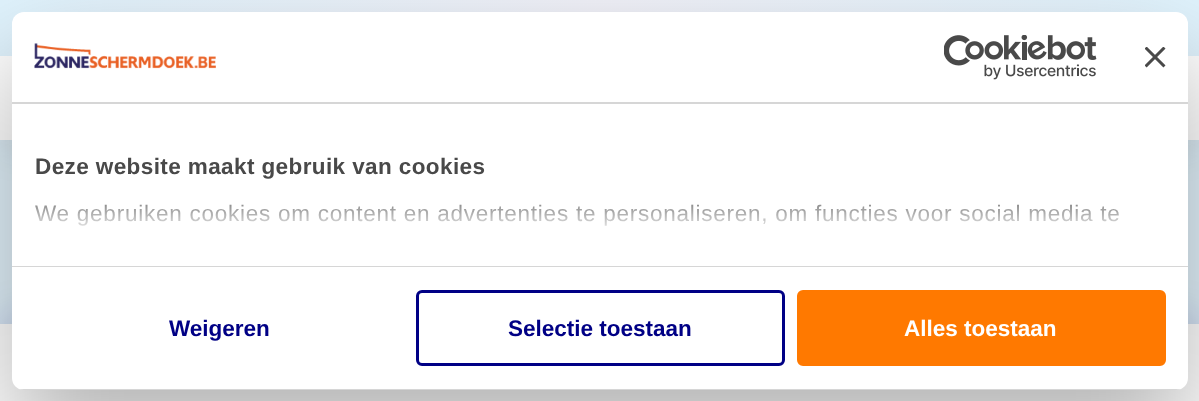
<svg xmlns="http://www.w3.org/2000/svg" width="1199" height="401">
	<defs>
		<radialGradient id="g1" gradientUnits="userSpaceOnUse" cx="600" cy="28" r="601"><stop offset="0" stop-color="#F2F2F9" /><stop offset="1" stop-color="#E0F3FD" /></radialGradient>
		<linearGradient id="g2" gradientUnits="userSpaceOnUse" x1="590" y1="266" x2="590" y2="185"><stop offset="0" stop-color="#FFFFFF" /><stop offset="0.5" stop-color="#FFFFFF" stop-opacity="0.8" /><stop offset="1" stop-color="#FFFFFF" stop-opacity="0" /></linearGradient>
		<clipPath id="clip1"><rect x="12" y="12" width="1176" height="378" rx="12" /></clipPath>
	</defs>
	<rect width="100%" height="100%" fill="#E3F3FC" />
	<rect x="0" y="15" width="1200" height="140" fill="#1F1F1F" fill-opacity="0.08" filter="blur(15px)" />
	<rect x="0" y="0" width="1199" height="56" fill="url(#g1)" />
	<rect x="0" y="56" width="1199" height="84" fill="#FFFFFF" />
	<rect x="0" y="317" width="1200" height="78" fill="#000085" fill-opacity="0.15" filter="blur(19px)" />
	<rect x="0" y="324" width="1199" height="77" fill="#FFFFFF" />
	<rect x="12" y="60" width="1176" height="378" rx="12" fill="#000000" fill-opacity="0.3" filter="blur(51px)" />
	<rect x="12" y="12" width="1176" height="378" rx="12" fill="#FFFFFF" />
	<rect x="12" y="102" width="1176" height="2" fill="#D6D6D6" />
	<image x="34" y="43" width="182" height="26" href="assets/img1.png" />
	<image x="944" y="35" width="153" height="45" href="assets/img2.png" />
	<image x="1145" y="47" width="21" height="21" href="assets/img3.png" />
	<rect x="12" y="266" width="1176" height="1" fill="#D6D6D6" />
	<text x="35" y="174" font-family="Liberation Sans" font-size="22.5" font-weight="700" letter-spacing="0.4" fill="#494949">Deze website maakt gebruik van cookies</text>
	<text x="35" y="221" font-family="Liberation Sans" font-size="22.5" letter-spacing="0.75" fill="#494949">We gebruiken cookies om content en advertenties te personaliseren, om functies voor social media te</text>
	<rect x="34" y="204" width="1085" height="22" fill="url(#g2)" />
	<g clip-path="url(#clip1)">
		<rect x="12" y="389" width="1176" height="1" fill="#D6D6D6" />
	</g>
	<text x="169" y="336" font-family="Liberation Sans" font-size="22.5" font-weight="700" fill="#000085">Weigeren</text>
	<rect x="417.5" y="291.5" width="366" height="73" rx="4.5" fill="none" stroke="#000085" stroke-width="3" />
	<text x="508" y="336" font-family="Liberation Sans" font-size="22.5" font-weight="700" fill="#000085">Selectie toestaan</text>
	<rect x="798.5" y="291.5" width="366" height="73" rx="4.5" fill="#FF7900" stroke="#FF7900" stroke-width="3" />
	<text x="904" y="336" font-family="Liberation Sans" font-size="22.5" font-weight="700" fill="#FFFFFF">Alles toestaan</text>
</svg>
